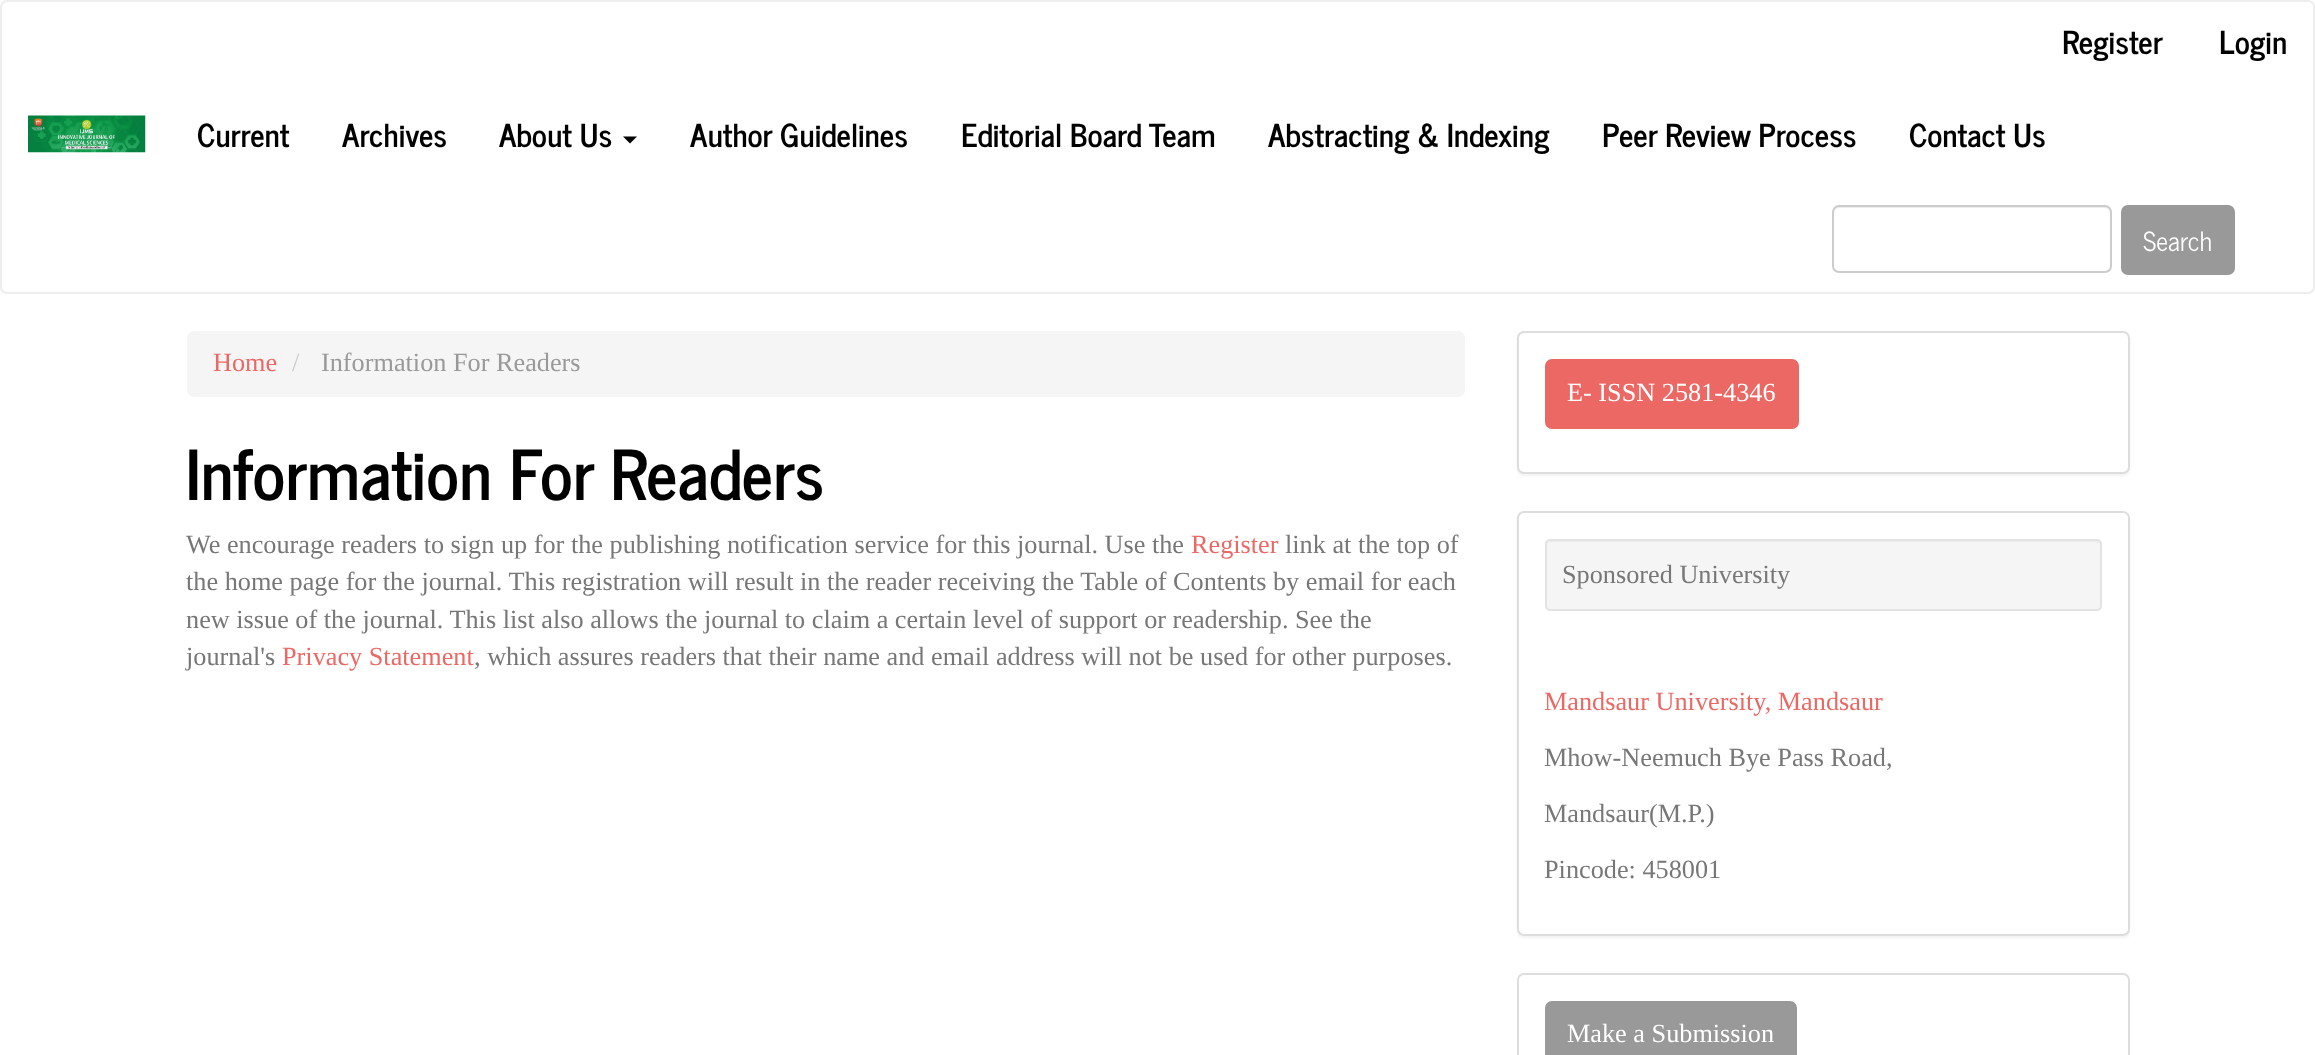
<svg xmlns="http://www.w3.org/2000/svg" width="2315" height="1055">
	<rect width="100%" height="100%" fill="#FFFFFF" />
	<rect x="1" y="1" width="2313" height="292" rx="6" fill="none" stroke="#EEEEEE" stroke-width="2" />
	<g font-family="News Cycle" font-size="31.5" font-weight="700" fill="#000000">
		<text x="2062" y="54">Register</text>
		<text x="2219" y="54">Login</text>
	</g>
	<image x="28" y="115" width="118" height="38" href="assets/img1.png" />
	<g font-family="News Cycle" font-size="31.5" font-weight="700" fill="#000000">
		<text x="197" y="147">Current</text>
		<text x="342" y="147">Archives</text>
		<text x="499" y="147">About Us</text>
	</g>
	<path d="M623 136.5H637L630 143.5Z" fill="#000000" />
	<g font-family="News Cycle" font-size="31.5" font-weight="700" fill="#000000">
		<text x="690" y="147">Author Guidelines</text>
		<text x="961" y="147">Editorial Board Team</text>
		<text x="1268" y="147">Abstracting &amp; Indexing</text>
		<text x="1602" y="147">Peer Review Process</text>
		<text x="1909" y="147">Contact Us</text>
	</g>
	<path d="M1839 208H2105C2108 208 2110 211 2110 214V269C2111 268 2111 267 2111 266V212C2111 209 2109 207 2106 207H1839C1836 207 1834 209 1834 212V214C1834 211 1836 208 1839 208Z" fill="#ECECEC" />
	<rect x="1833" y="206" width="278" height="66" rx="6" fill="none" stroke="#CCCCCC" stroke-width="2" />
	<rect x="2122" y="206" width="112" height="68" rx="6" fill="#999999" stroke="#999999" stroke-width="2" />
	<text x="2143" y="251" font-family="News Cycle" font-size="26.25" fill="#FFFFFF">Search</text>
	<rect x="187" y="331" width="1278" height="66" rx="7" fill="#F5F5F5" />
	<text x="213" y="371" font-family="Liberation Serif" font-size="26.25" fill="#EB6864">Home</text>
	<text x="292" y="371" font-family="Liberation Serif" font-size="26.25" fill="#CCCCCC">/</text>
	<text x="321" y="371" font-family="Liberation Serif" font-size="26.25" fill="#999999">Information For Readers</text>
	<text x="186" y="500" font-family="News Cycle" font-size="68.25" font-weight="700" fill="#000000">Information For Readers</text>
	<text x="186" y="553" font-family="Liberation Serif" font-size="26.25" fill="#777777">We encourage readers to sign up for the publishing notification service for this journal. Use the</text>
	<text x="1191" y="553" font-family="Liberation Serif" font-size="26.25" fill="#EB6864">Register</text>
	<g font-family="Liberation Serif" font-size="26.25" fill="#777777">
		<text x="1285" y="553">link at the top of</text>
		<text x="186" y="590">the home page for the journal. This registration will result in the reader receiving the Table of Contents by email for each</text>
		<text x="186" y="628">new issue of the journal. This list also allows the journal to claim a certain level of support or readership. See the</text>
		<text x="186" y="665">journal's</text>
	</g>
	<text x="282" y="665" font-family="Liberation Serif" font-size="26.25" fill="#EB6864">Privacy Statement</text>
	<text x="474" y="665" font-family="Liberation Serif" font-size="26.25" fill="#777777">, which assures readers that their name and email address will not be used for other purposes.</text>
	<rect x="1517" y="333" width="613" height="143" rx="7" fill="#000000" fill-opacity="0.05" filter="blur(1px)" />
	<rect x="1518" y="332" width="611" height="141" rx="6" fill="#FFFFFF" stroke="#DDDDDD" stroke-width="2" />
	<rect x="1546" y="360" width="252" height="68" rx="6" fill="#EB6864" stroke="#EB6864" stroke-width="2" />
	<text x="1567" y="401" font-family="Liberation Serif" font-size="26.25" fill="#FFFFFF">E- ISSN 2581-4346</text>
	<rect x="1517" y="513" width="613" height="425" rx="7" fill="#000000" fill-opacity="0.05" filter="blur(1px)" />
	<rect x="1518" y="512" width="611" height="423" rx="6" fill="#FFFFFF" stroke="#DDDDDD" stroke-width="2" />
	<rect x="1545" y="539" width="557" height="72" rx="5" fill="#F5F5F5" />
	<path d="M1550 542H2096C2098 542 2100 544 2100 546V545C2100 543 2098 541 2096 541H1551C1549 541 1547 543 1547 545V546C1547 544 1549 542 1550 542Z" fill="#E9E9E9" />
	<rect x="1546" y="540" width="555" height="70" rx="4" fill="none" stroke="#E3E3E3" stroke-width="2" />
	<text x="1562" y="583" font-family="Liberation Serif" font-size="26.25" fill="#777777">Sponsored University</text>
	<text x="1544" y="710" font-family="Liberation Serif" font-size="26.25" fill="#EB6864">Mandsaur University, Mandsaur</text>
	<g font-family="Liberation Serif" font-size="26.25" fill="#777777">
		<text x="1544" y="766">Mhow-Neemuch Bye Pass Road,</text>
		<text x="1544" y="822">Mandsaur(M.P.)</text>
		<text x="1544" y="878">Pincode: 458001</text>
	</g>
	<rect x="1518" y="974" width="611" height="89" rx="6" fill="none" stroke="#DDDDDD" stroke-width="2" />
	<rect x="1546" y="1002" width="250" height="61" rx="6" fill="#999999" stroke="#999999" stroke-width="2" />
	<text x="1567" y="1042" font-family="Liberation Serif" font-size="26.25" fill="#FFFFFF">Make a Submission</text>
</svg>
